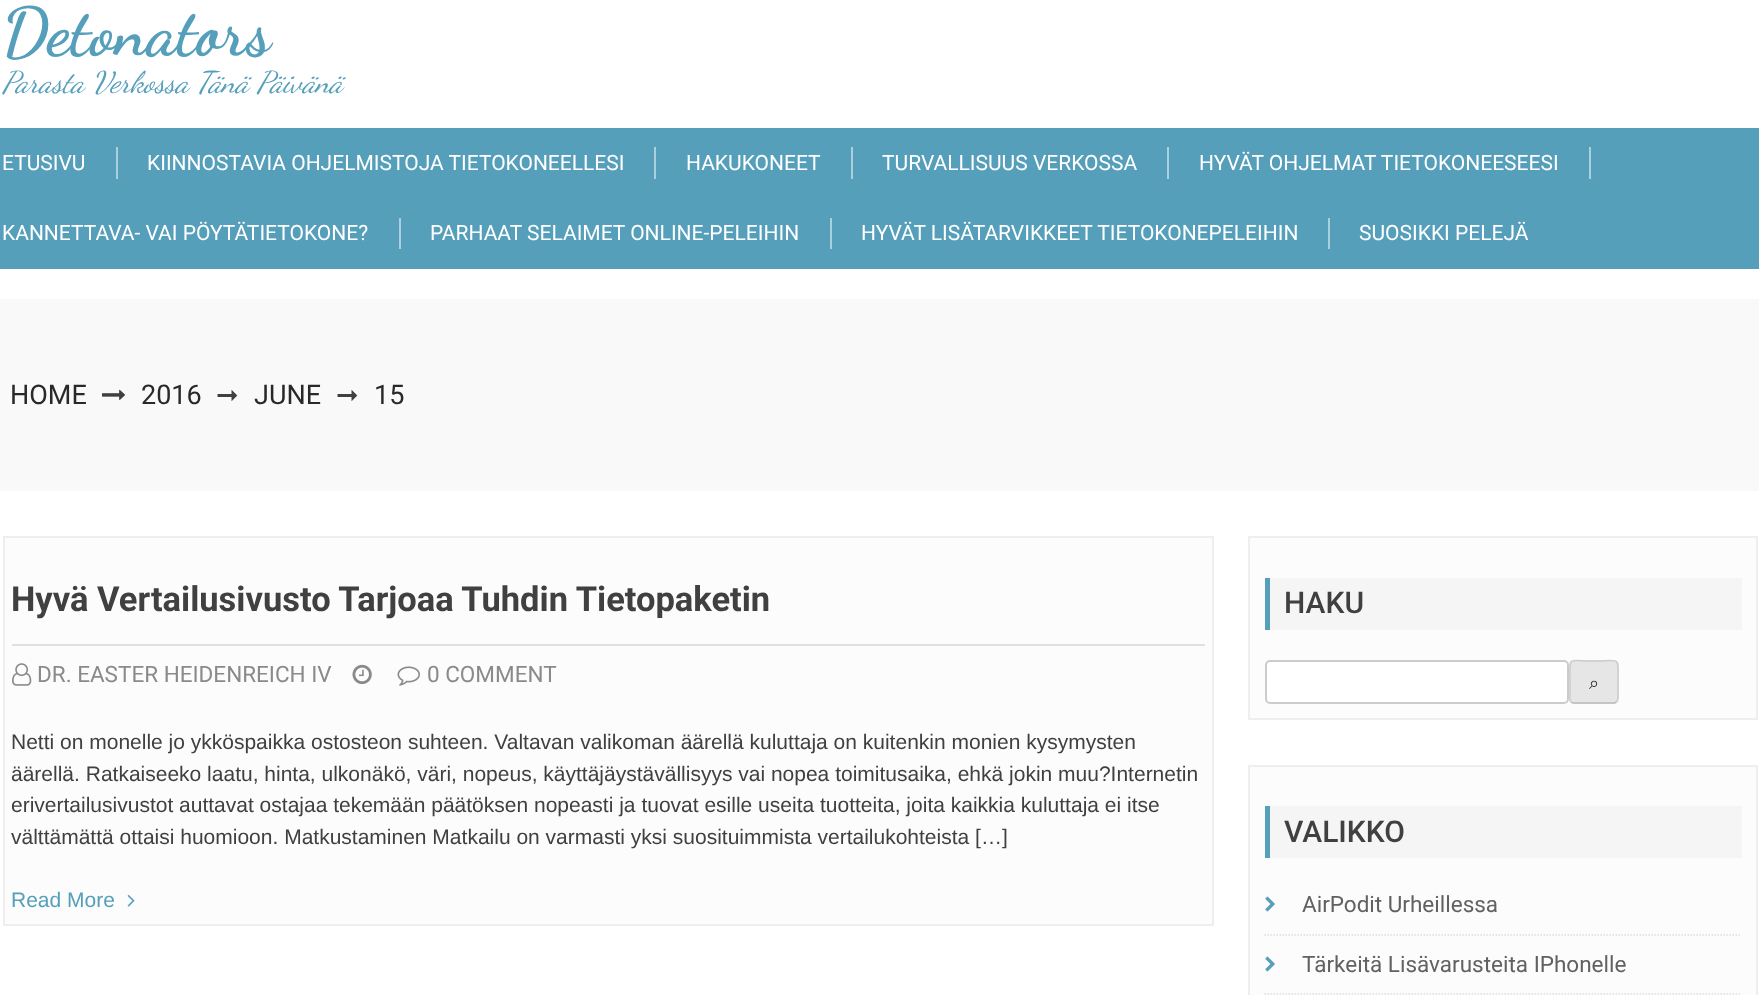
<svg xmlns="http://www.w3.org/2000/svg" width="1759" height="995">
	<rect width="100%" height="100%" fill="#FFFFFF" />
	<text x="2" y="54" font-family="Dancing Script" font-size="67.5" font-weight="700" fill="#559FBB">Detonators</text>
	<text x="2" y="92" font-family="Dancing Script" font-size="30" font-style="italic" fill="#559FBB">Parasta Verkossa Tänä Päivänä</text>
	<rect x="0" y="128" width="1759" height="141" fill="#559FBB" />
	<rect x="116" y="147" width="2" height="32" fill="#AACFDD" />
	<text x="2" y="170" font-family="Roboto" font-size="21" fill="#FFFFFF">ETUSIVU</text>
	<rect x="654" y="147" width="2" height="32" fill="#AACFDD" />
	<text x="147" y="170" font-family="Roboto" font-size="21" fill="#FFFFFF">KIINNOSTAVIA OHJELMISTOJA TIETOKONEELLESI</text>
	<rect x="851" y="147" width="2" height="32" fill="#AACFDD" />
	<text x="686" y="170" font-family="Roboto" font-size="21" fill="#FFFFFF">HAKUKONEET</text>
	<rect x="1167" y="147" width="2" height="32" fill="#AACFDD" />
	<text x="882" y="170" font-family="Roboto" font-size="21" fill="#FFFFFF">TURVALLISUUS VERKOSSA</text>
	<rect x="1589" y="147" width="2" height="32" fill="#AACFDD" />
	<text x="1199" y="170" font-family="Roboto" font-size="21" fill="#FFFFFF">HYVÄT OHJELMAT TIETOKONEESEESI</text>
	<rect x="399" y="218" width="2" height="31" fill="#AACFDD" />
	<text x="2" y="240" font-family="Roboto" font-size="21" fill="#FFFFFF">KANNETTAVA- VAI PÖYTÄTIETOKONE?</text>
	<rect x="830" y="218" width="2" height="31" fill="#AACFDD" />
	<text x="430" y="240" font-family="Roboto" font-size="21" fill="#FFFFFF">PARHAAT SELAIMET ONLINE-PELEIHIN</text>
	<rect x="1328" y="218" width="2" height="31" fill="#AACFDD" />
	<g font-family="Roboto" font-size="21" fill="#FFFFFF">
		<text x="861" y="240">HYVÄT LISÄTARVIKKEET TIETOKONEPELEIHIN</text>
		<text x="1359" y="240">SUOSIKKI PELEJÄ</text>
	</g>
	<rect x="0" y="299" width="1759" height="192" fill="#F9F9F9" />
	<text x="10" y="404" font-family="Roboto" font-size="27" fill="#292929">HOME</text>
	<image x="102" y="389" width="24" height="11" href="assets/img1.png" />
	<text x="141" y="404" font-family="Roboto" font-size="27" fill="#292929">2016</text>
	<text x="216" y="404" font-family="DejaVu Sans" font-size="27" fill="#404040">➞</text>
	<text x="254" y="404" font-family="Roboto" font-size="27" fill="#292929">JUNE</text>
	<text x="336" y="404" font-family="DejaVu Sans" font-size="27" fill="#404040">➞</text>
	<text x="374" y="404" font-family="Roboto" font-size="27" fill="#292929">15</text>
	<rect x="4" y="537" width="1209" height="388" fill="#FCFCFC" stroke="#EEEEEE" stroke-width="2" />
	<text x="11" y="611" font-family="Roboto" font-size="34.5" font-weight="700" fill="#404040">Hyvä Vertailusivusto Tarjoaa Tuhdin Tietopaketin</text>
	<rect x="12" y="644" width="1193" height="2" fill="#E0E0E0" />
	<image x="12" y="663" width="20" height="23" href="assets/img2.png" />
	<text x="37" y="682" font-family="Roboto" font-size="22.5" fill="#8A8A8A">DR. EASTER HEIDENREICH IV</text>
	<image x="352" y="664" width="20" height="21" href="assets/img3.png" />
	<image x="397" y="666" width="23" height="20" href="assets/img4.png" />
	<text x="427" y="682" font-family="Roboto" font-size="22.5" fill="#8A8A8A">0 COMMENT</text>
	<g font-family="Liberation Sans" font-size="21" fill="#404040">
		<text x="11" y="749">Netti on monelle jo ykköspaikka ostosteon suhteen. Valtavan valikoman äärellä kuluttaja on kuitenkin monien kysymysten</text>
		<text x="11" y="781">äärellä. Ratkaiseeko laatu, hinta, ulkonäkö, väri, nopeus, käyttäjäystävällisyys vai nopea toimitusaika, ehkä jokin muu?Internetin</text>
		<text x="11" y="812">erivertailusivustot auttavat ostajaa tekemään päätöksen nopeasti ja tuovat esille useita tuotteita, joita kaikkia kuluttaja ei itse</text>
		<text x="11" y="844">välttämättä ottaisi huomioon. Matkustaminen Matkailu on varmasti yksi suosituimmista vertailukohteista […]</text>
	</g>
	<text x="11" y="907" font-family="Liberation Sans" font-size="21" fill="#559FBB">Read More</text>
	<image x="127" y="895" width="8" height="12" href="assets/img5.png" />
	<rect x="1249" y="537" width="508" height="182" fill="#FCFCFC" stroke="#EEEEEE" stroke-width="2" />
	<rect x="1270" y="578" width="472" height="52" fill="#F5F5F5" />
	<rect x="1265" y="578" width="5" height="52" fill="#559FBB" />
	<text x="1284" y="613" font-family="Roboto" font-size="30" font-weight="500" fill="#404040">HAKU</text>
	<rect x="1266" y="661" width="302" height="42" rx="4" fill="#FFFFFF" stroke="#CCCCCC" stroke-width="2" />
	<rect x="1569" y="660" width="50" height="44" rx="5" fill="#E6E6E6" />
	<path d="M1616.5 701.5C1616 702.5 1615 703 1614 703H1573.5C1572.5 703 1571.5 702.5 1571 701.5" fill="none" stroke="#BBBBBB" stroke-width="1.5" />
	<path d="M1571 701.5C1569 699.5 1570 695 1570 693V682C1570 655.5 1566 661 1594 661C1621.5 661 1618 655.5 1618 682V693C1618 695 1618.5 699.5 1616.5 701.5" fill="none" stroke="#CCCCCC" stroke-width="1.5" />
	<text x="1589" y="689" font-family="FreeSerif" font-size="18" fill="#292929">⌕</text>
	<rect x="1249" y="766" width="508" height="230" fill="#FCFCFC" stroke="#EEEEEE" stroke-width="2" />
	<rect x="1270" y="806" width="472" height="52" fill="#F5F5F5" />
	<rect x="1265" y="806" width="5" height="52" fill="#559FBB" />
	<text x="1284" y="842" font-family="Roboto" font-size="30" font-weight="500" fill="#404040">VALIKKO</text>
	<path d="M1264.5 935H1741.5" fill="none" stroke="#DEDCDC" stroke-width="1.5" stroke-dasharray="1.5 1.5" />
	<image x="1265" y="896" width="10" height="16" href="assets/img6.png" />
	<text x="1302" y="912" font-family="Roboto" font-size="22.5" fill="#616161">AirPodit Urheillessa</text>
	<path d="M1264.5 994H1741.5" fill="none" stroke="#DEDCDC" stroke-width="1.5" stroke-dasharray="1.5 1.5" />
	<image x="1265" y="956" width="10" height="16" href="assets/img6.png" />
	<text x="1302" y="972" font-family="Roboto" font-size="22.5" fill="#616161">Tärkeitä Lisävarusteita IPhonelle</text>
</svg>
